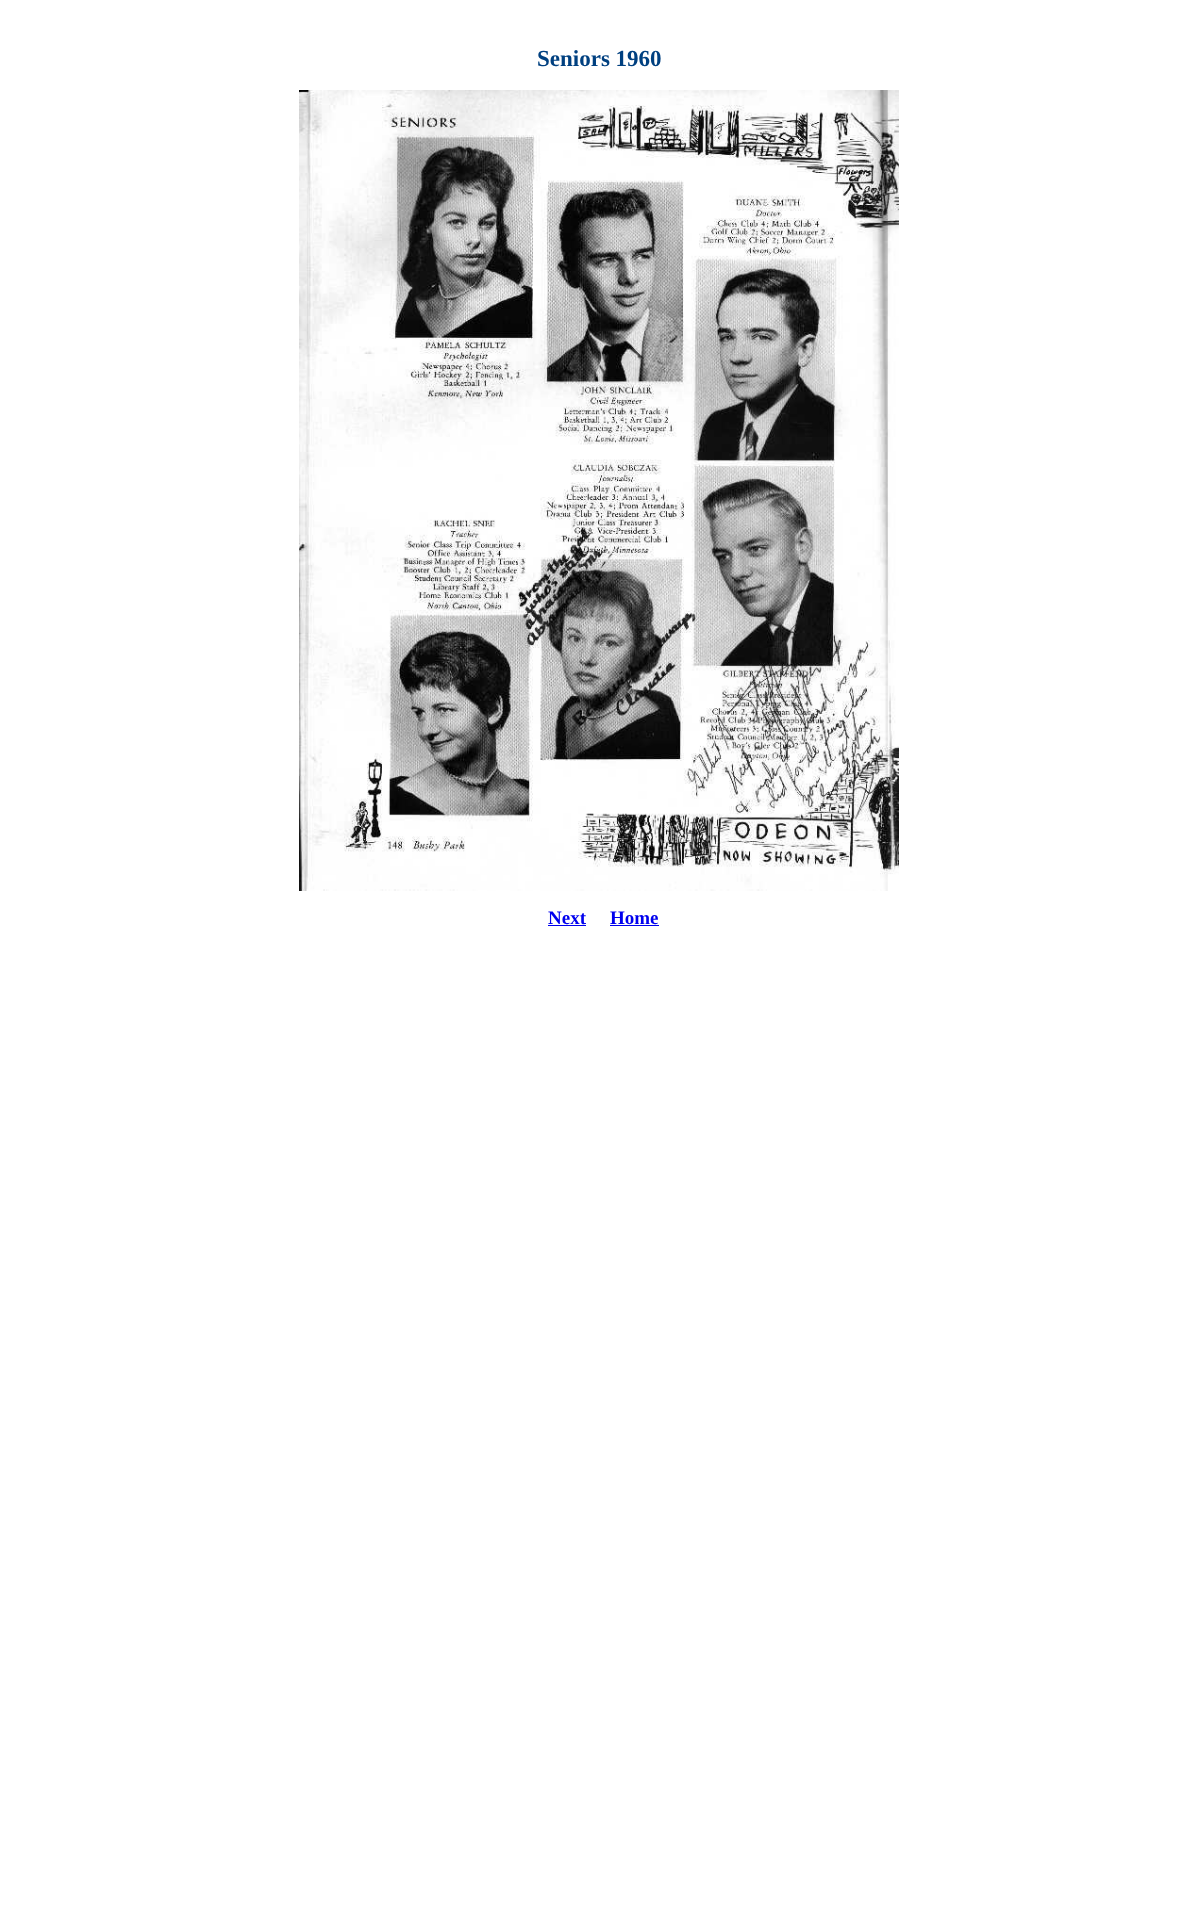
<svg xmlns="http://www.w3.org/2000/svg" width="1198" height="1921">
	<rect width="100%" height="100%" fill="#FFFFFF" />
	<text x="537" y="66" font-family="Liberation Serif" font-size="23" font-weight="700" fill="#004080">Seniors 1960</text>
	<image x="299" y="90" width="600" height="801" href="assets/img1.png" />
	<text x="548" y="924" font-family="Liberation Serif" font-size="19" font-weight="700" fill="#0000EE">Next</text>
	<rect x="548" y="925" width="38" height="1" fill="#0000EE" />
	<text x="610" y="924" font-family="Liberation Serif" font-size="19" font-weight="700" fill="#0000EE">Home</text>
	<rect x="610" y="925" width="49" height="1" fill="#0000EE" />
</svg>
